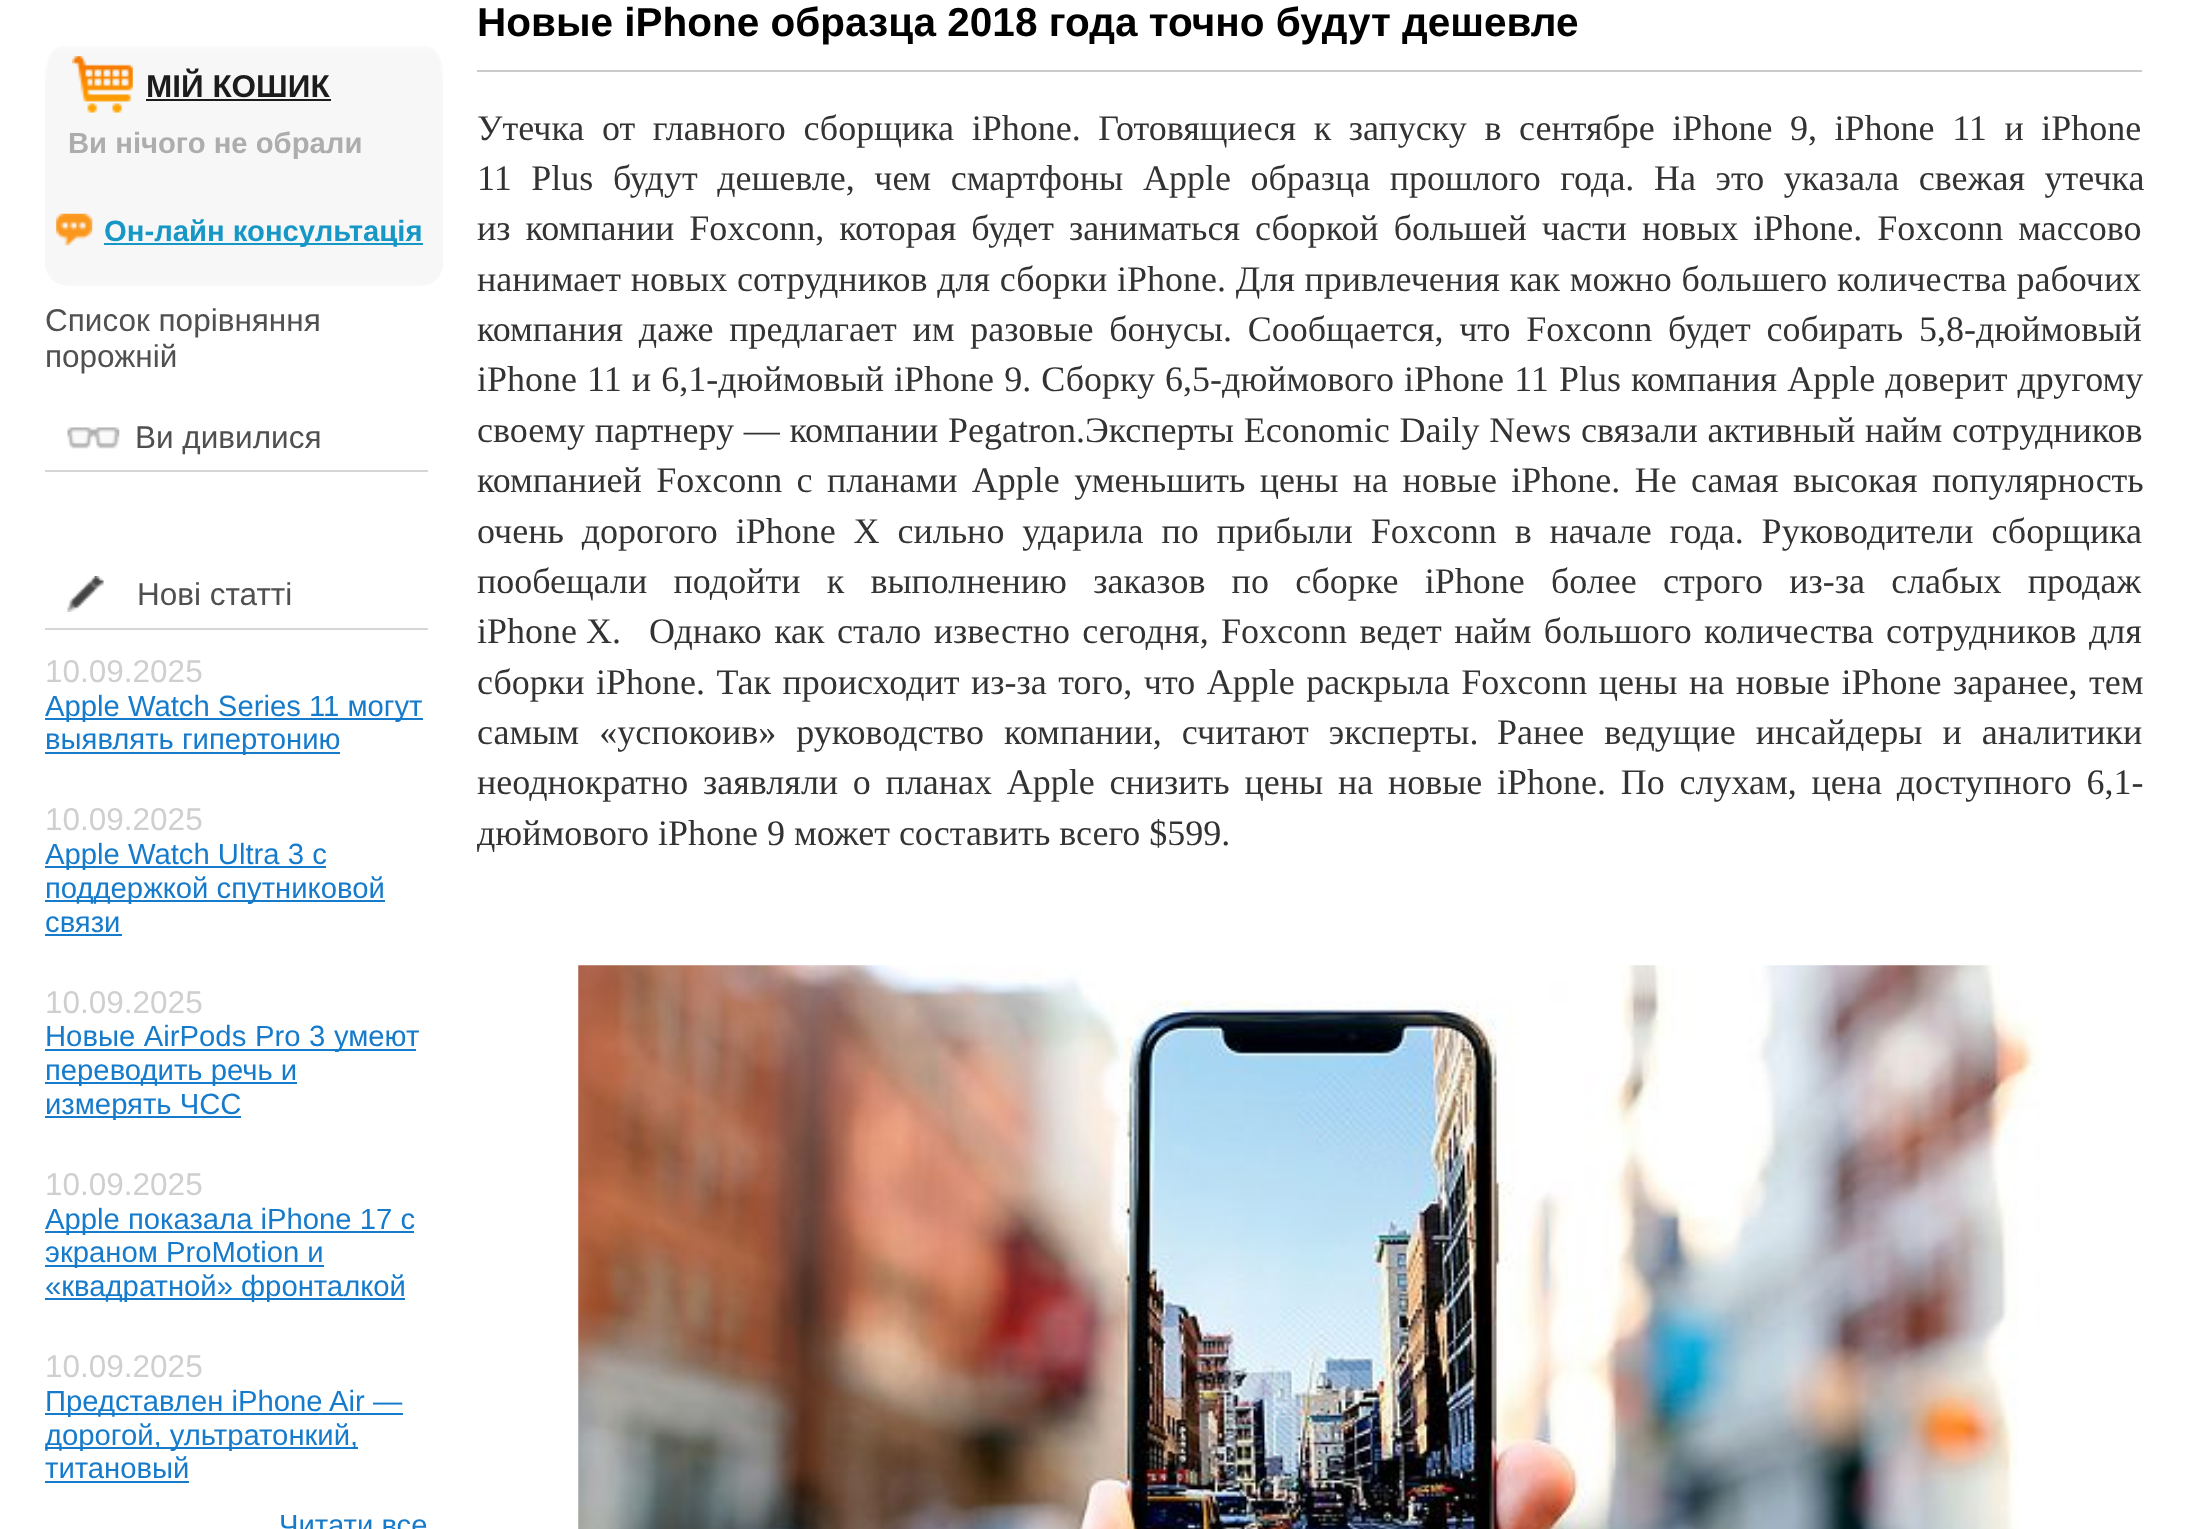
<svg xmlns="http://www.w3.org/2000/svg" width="2204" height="1529">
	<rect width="100%" height="100%" fill="#FFFFFF" />
	<image x="45" y="46" width="398" height="240" href="assets/img1.png" />
	<image x="72" y="56" width="61" height="57" href="assets/img2.png" />
	<text x="146" y="97" font-family="Liberation Sans" font-size="31.5" font-weight="700" fill="#1C1C1C">МІЙ КОШИК</text>
	<rect x="146" y="99" width="185" height="2" fill="#1C1C1C" />
	<text x="68" y="153" font-family="Liberation Sans" font-size="29.25" font-weight="700" fill="#ADADAD">Ви нічого не обрали</text>
	<image x="56" y="213" width="37" height="33" href="assets/img3.png" />
	<rect x="104" y="243" width="319" height="2" fill="#1797C6" />
	<text x="104" y="241" font-family="Liberation Sans" font-size="29.25" font-weight="700" fill="#1797C6">Он-лайн консультація</text>
	<g font-family="Liberation Sans" font-size="31.5" fill="#505050">
		<text x="45" y="331">Список порівняння</text>
		<text x="45" y="367">порожній</text>
	</g>
	<rect x="45" y="470" width="383" height="2" fill="#D7D5D5" />
	<image x="67" y="427" width="53" height="22" href="assets/img4.png" />
	<text x="135" y="448" font-family="Liberation Sans" font-size="31.5" fill="#505050">Ви дивилися</text>
	<rect x="45" y="628" width="383" height="2" fill="#D7D5D5" />
	<image x="67" y="576" width="37" height="36" href="assets/img5.png" />
	<text x="137" y="605" font-family="Liberation Sans" font-size="31.5" fill="#505050">Нові статті</text>
	<text x="45" y="682" font-family="Liberation Sans" font-size="31.5" fill="#CFCFCF">10.09.2025</text>
	<rect x="45" y="718" width="378" height="2" fill="#177BCB" />
	<text x="45" y="716" font-family="Liberation Sans" font-size="29.25" fill="#177BCB">Apple Watch Series 11 могут</text>
	<rect x="45" y="752" width="295" height="2" fill="#177BCB" />
	<text x="45" y="749" font-family="Liberation Sans" font-size="29.25" fill="#177BCB">выявлять гипертонию</text>
	<text x="45" y="830" font-family="Liberation Sans" font-size="31.5" fill="#CFCFCF">10.09.2025</text>
	<rect x="45" y="866" width="281" height="2" fill="#177BCB" />
	<text x="45" y="864" font-family="Liberation Sans" font-size="29.25" fill="#177BCB">Apple Watch Ultra 3 с</text>
	<rect x="45" y="900" width="340" height="2" fill="#177BCB" />
	<g font-family="Liberation Sans" font-size="29.25" fill="#177BCB">
		<text x="45" y="898">поддержкой спутниковой</text>
		<text x="45" y="932">связи</text>
	</g>
	<rect x="45" y="934" width="77" height="2" fill="#177BCB" />
	<text x="45" y="1013" font-family="Liberation Sans" font-size="31.5" fill="#CFCFCF">10.09.2025</text>
	<rect x="45" y="1049" width="371" height="2" fill="#177BCB" />
	<text x="45" y="1046" word-spacing="0.5" font-family="Liberation Sans" font-size="29.25" fill="#177BCB">Новые AirPods Pro 3 умеют</text>
	<rect x="45" y="1082" width="252" height="2" fill="#177BCB" />
	<text x="45" y="1080" font-family="Liberation Sans" font-size="29.25" fill="#177BCB">переводить речь и</text>
	<rect x="45" y="1116" width="196" height="2" fill="#177BCB" />
	<text x="45" y="1114" font-family="Liberation Sans" font-size="29.25" fill="#177BCB">измерять ЧСС</text>
	<text x="45" y="1195" font-family="Liberation Sans" font-size="31.5" fill="#CFCFCF">10.09.2025</text>
	<rect x="45" y="1231" width="369" height="2" fill="#177BCB" />
	<text x="45" y="1229" font-family="Liberation Sans" font-size="29.25" fill="#177BCB">Apple показала iPhone 17 с</text>
	<rect x="45" y="1265" width="279" height="2" fill="#177BCB" />
	<text x="45" y="1262" font-family="Liberation Sans" font-size="29.25" fill="#177BCB">экраном ProMotion и</text>
	<rect x="45" y="1298" width="360" height="2" fill="#177BCB" />
	<text x="45" y="1296" font-family="Liberation Sans" font-size="29.25" fill="#177BCB">«квадратной» фронталкой</text>
	<text x="45" y="1377" font-family="Liberation Sans" font-size="31.5" fill="#CFCFCF">10.09.2025</text>
	<rect x="45" y="1413" width="358" height="2" fill="#177BCB" />
	<text x="45" y="1411" font-family="Liberation Sans" font-size="29.25" fill="#177BCB">Представлен iPhone Air —</text>
	<rect x="45" y="1447" width="313" height="2" fill="#177BCB" />
	<g font-family="Liberation Sans" font-size="29.25" fill="#177BCB">
		<text x="45" y="1445">дорогой, ультратонкий,</text>
		<text x="45" y="1478">титановый</text>
	</g>
	<rect x="45" y="1481" width="144" height="2" fill="#177BCB" />
	<text x="279" y="1535" font-family="Liberation Sans" font-size="29.25" fill="#177BCB">Читати все</text>
	<rect x="477" y="70" width="1665" height="2" fill="#CBCBCB" />
	<text x="477" y="36" font-family="Liberation Sans" font-size="40.5" font-weight="700" fill="#000000">Новые iPhone образца 2018 года точно будут дешевле</text>
	<g font-family="Liberation Serif" font-size="36" fill="#333333">
		<text x="477" y="140" word-spacing="8.6">Утечка от главного сборщика iPhone. Готовящиеся к запуску в сентябре iPhone 9, iPhone 11 и iPhone</text>
		<text x="477" y="190" word-spacing="10.6">11 Plus будут дешевле, чем смартфоны Apple образца прошлого года. На это указала свежая утечка</text>
		<text x="477" y="240" word-spacing="6">из компании Foxconn, которая будет заниматься сборкой большей части новых iPhone. Foxconn массово</text>
		<text x="477" y="291" word-spacing="0.75">нанимает новых сотрудников для сборки iPhone. Для привлечения как можно большего количества рабочих</text>
		<text x="477" y="341" word-spacing="6.75">компания даже предлагает им разовые бонусы. Сообщается, что Foxconn будет собирать 5,8-дюймовый</text>
		<text x="477" y="391" word-spacing="1.1">iPhone 11 и 6,1-дюймовый iPhone 9. Сборку 6,5-дюймового iPhone 11 Plus компания Apple доверит другому</text>
		<text x="477" y="442" word-spacing="0.75">своему партнеру — компании Pegatron.Эксперты Economic Daily News связали активный найм сотрудников</text>
		<text x="477" y="492" word-spacing="5.4">компанией Foxconn с планами Apple уменьшить цены на новые iPhone. Не самая высокая популярность</text>
		<text x="477" y="543" word-spacing="8.9">очень дорогого iPhone X сильно ударила по прибыли Foxconn в начале года. Руководители сборщика</text>
		<text x="477" y="593" word-spacing="17.25">пообещали подойти к выполнению заказов по сборке iPhone более строго из-за слабых продаж</text>
		<text x="477" y="643">iPhone X.</text>
		<text x="649" y="643" word-spacing="3.4">Однако как стало известно сегодня, Foxconn ведет найм большого количества сотрудников для</text>
		<text x="477" y="694" word-spacing="2.5">сборки iPhone. Так происходит из-за того, что Apple раскрыла Foxconn цены на новые iPhone заранее, тем</text>
		<text x="477" y="744" word-spacing="11">самым «успокоив» руководство компании, считают эксперты.</text>
		<text x="1497" y="744" word-spacing="11">Ранее ведущие инсайдеры и аналитики</text>
		<text x="477" y="794" word-spacing="5.75">неоднократно заявляли о планах Apple снизить цены на новые iPhone. По слухам, цена доступного 6,1-</text>
		<text x="477" y="845">дюймового iPhone 9 может составить всего $599.</text>
	</g>
	<image x="578" y="965" width="1463" height="564" href="assets/img6.png" />
</svg>
